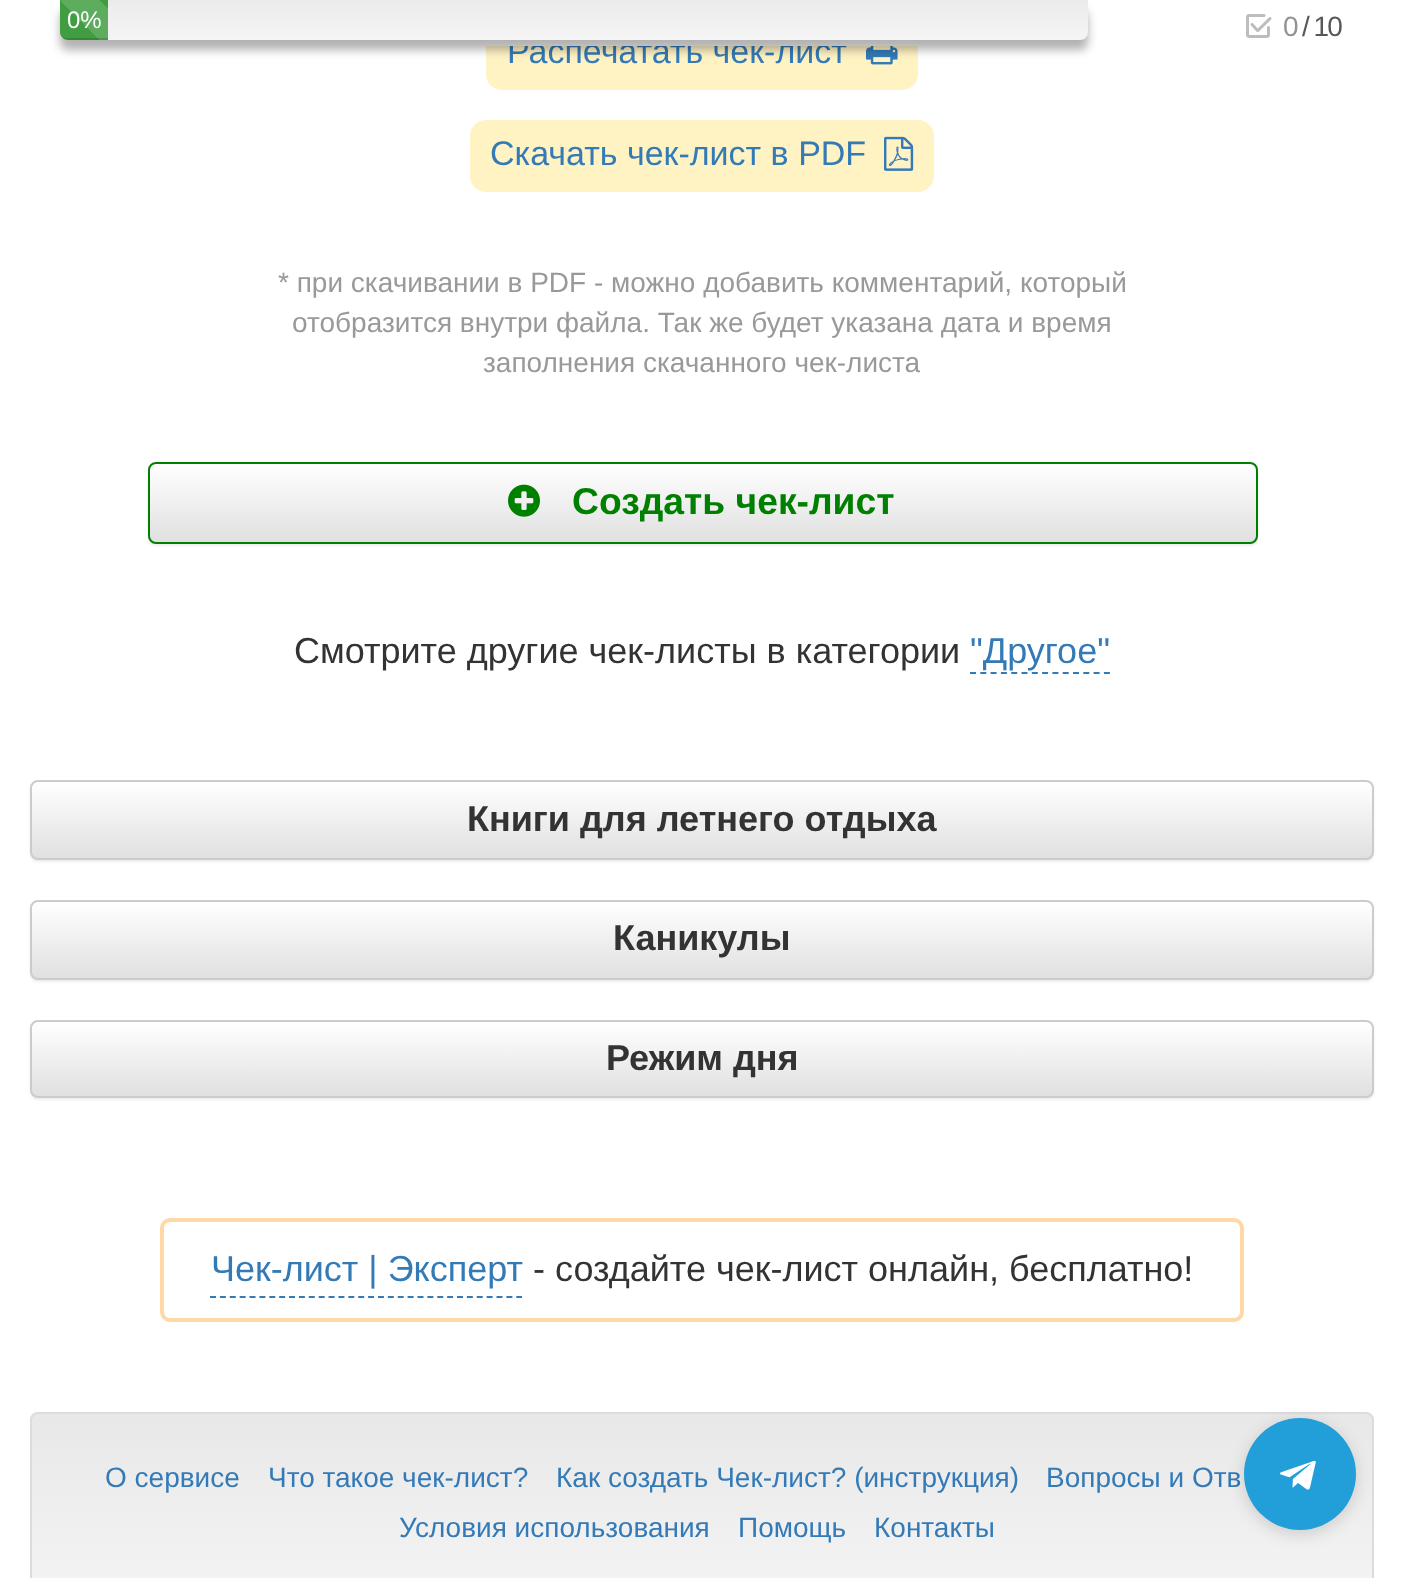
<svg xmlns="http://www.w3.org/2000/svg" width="1404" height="1578">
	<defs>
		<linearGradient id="g1" gradientUnits="userSpaceOnUse" x1="574" y1="0" x2="574" y2="40"><stop offset="0" stop-color="#EBEBEB" /><stop offset="1" stop-color="#F5F5F5" /></linearGradient>
		<linearGradient id="g2" gradientUnits="userSpaceOnUse" x1="60" y1="80" x2="140" y2="0"><stop offset="0.25" stop-color="#FFFFFF" stop-opacity="0.15" /><stop offset="0.25" stop-color="#FFFFFF" stop-opacity="0" /><stop offset="0.5" stop-color="#FFFFFF" stop-opacity="0" /><stop offset="0.5" stop-color="#FFFFFF" stop-opacity="0.15" /><stop offset="0.75" stop-color="#FFFFFF" stop-opacity="0.15" /><stop offset="0.75" stop-color="#FFFFFF" stop-opacity="0" /><stop offset="1" stop-color="#000000" stop-opacity="0" /></linearGradient>
		<clipPath id="clip1"><path d="M60 0H1088V32C1088 36.5 1084.5 40 1080 40H68C63.5 40 60 36.5 60 32Z" /></clipPath>
		<clipPath id="clip2"><rect x="148" y="462" width="1110" height="82" rx="8" /></clipPath>
		<linearGradient id="g3" gradientUnits="userSpaceOnUse" x1="703" y1="464" x2="703" y2="542"><stop offset="0" stop-color="#FFFFFF" /><stop offset="1" stop-color="#E0E0E0" /></linearGradient>
		<clipPath id="clip3"><rect x="30" y="780" width="1344" height="80" rx="8" /></clipPath>
		<linearGradient id="g4" gradientUnits="userSpaceOnUse" x1="702" y1="782" x2="702" y2="858"><stop offset="0" stop-color="#FFFFFF" /><stop offset="1" stop-color="#E0E0E0" /></linearGradient>
		<clipPath id="clip4"><rect x="30" y="900" width="1344" height="80" rx="8" /></clipPath>
		<linearGradient id="g5" gradientUnits="userSpaceOnUse" x1="702" y1="902" x2="702" y2="978"><stop offset="0" stop-color="#FFFFFF" /><stop offset="1" stop-color="#E0E0E0" /></linearGradient>
		<clipPath id="clip5"><rect x="30" y="1020" width="1344" height="78" rx="8" /></clipPath>
		<linearGradient id="g6" gradientUnits="userSpaceOnUse" x1="702" y1="1022" x2="702" y2="1096"><stop offset="0" stop-color="#FFFFFF" /><stop offset="1" stop-color="#E0E0E0" /></linearGradient>
		<clipPath id="clip6"><rect x="30" y="1412" width="1344" height="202" rx="8" /></clipPath>
		<linearGradient id="g7" gradientUnits="userSpaceOnUse" x1="702" y1="1414" x2="702" y2="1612"><stop offset="0" stop-color="#E8E8E8" /><stop offset="1" stop-color="#F5F5F5" /></linearGradient>
	</defs>
	<rect width="100%" height="100%" fill="#FFFFFF" />
	<rect x="486" y="16" width="432" height="74" rx="16" fill="#FFF2C3" />
	<text x="507" y="63" font-family="Liberation Sans" font-size="34" fill="#337AB7">Распечатать чек-лист</text>
	<path d="M32 40V46H1376V6H1374V40Z" fill="#FFFFFF" />
	<rect x="486" y="16" width="432" height="24" fill="#FFFFFF" />
	<image x="866" y="46" width="32" height="19" href="assets/img2.png" />
	<rect x="60" y="10" width="1028" height="40" rx="8" fill="#000000" fill-opacity="0.3" filter="blur(5px)" />
	<path d="M60 0H1088V32C1088 36.5 1084.5 40 1080 40H68C63.5 40 60 36.5 60 32Z" fill="url(#g1)" />
	<path d="M60 0H108V40H68C63.5 40 60 36.5 60 32Z" fill="#419D41" />
	<rect x="61" y="0" width="47" height="40" fill="url(#g2)" />
	<g clip-path="url(#clip1)">
		<rect x="60" y="38" width="48" height="2" fill="#000000" fill-opacity="0.15" />
	</g>
	<text x="67" y="28" font-family="Liberation Sans" font-size="24" fill="#FFFFFF">0%</text>
	<image x="1246" y="14" width="26" height="24" href="assets/img1.png" />
	<text x="1283" y="36" font-family="Liberation Sans" font-size="28" letter-spacing="-2" fill="#939393">0</text>
	<text x="1302" y="36" font-family="Liberation Sans" font-size="28" letter-spacing="-2" fill="#575757">/ 10</text>
	<rect x="470" y="120" width="464" height="72" rx="16" fill="#FFF2C3" />
	<text x="490" y="165" font-family="Liberation Sans" font-size="34" fill="#337AB7">Скачать чек-лист в PDF</text>
	<image x="884" y="136" width="30" height="35" href="assets/img3.png" />
	<g font-family="Liberation Sans" font-size="28" fill="#999999">
		<text x="278" y="292">* при скачивании в PDF - можно добавить комментарий, который</text>
		<text x="292" y="332">отобразится внутри файла. Так же будет указана дата и время</text>
		<text x="483" y="372">заполнения скачанного чек-листа</text>
	</g>
	<rect x="148" y="464" width="1110" height="82" rx="8" fill="#000000" fill-opacity="0.07" filter="blur(1px)" />
	<g clip-path="url(#clip2)">
		<rect x="148" y="464" width="1110" height="78" fill="url(#g3)" />
	</g>
	<rect x="149" y="463" width="1108" height="80" rx="7" fill="none" stroke="#008000" stroke-width="2" />
	<image x="508" y="484" width="32" height="33" href="assets/img4.png" />
	<text x="572" y="514" font-family="Liberation Sans" font-size="37.25" font-weight="700" fill="#008000">Создать чек-лист</text>
	<text x="294" y="663" font-family="Liberation Sans" font-size="36" fill="#333333">Смотрите другие чек-листы в категории</text>
	<text x="970" y="663" font-family="Liberation Sans" font-size="36" fill="#337AB7">"Другое"</text>
	<path d="M970 673H1110" fill="none" stroke="#337AB7" stroke-width="2" stroke-dasharray="6 4.3" />
	<rect x="30" y="782" width="1344" height="80" rx="8" fill="#000000" fill-opacity="0.07" filter="blur(1px)" />
	<g clip-path="url(#clip3)">
		<rect x="30" y="782" width="1344" height="76" fill="url(#g4)" />
	</g>
	<rect x="31" y="781" width="1342" height="78" rx="7" fill="none" stroke="#CCCCCC" stroke-width="2" />
	<text x="467" y="831" font-family="Liberation Sans" font-size="36" font-weight="700" fill="#333333">Книги для летнего отдыха</text>
	<rect x="30" y="902" width="1344" height="80" rx="8" fill="#000000" fill-opacity="0.07" filter="blur(1px)" />
	<g clip-path="url(#clip4)">
		<rect x="30" y="902" width="1344" height="76" fill="url(#g5)" />
	</g>
	<rect x="31" y="901" width="1342" height="78" rx="7" fill="none" stroke="#CCCCCC" stroke-width="2" />
	<text x="613" y="950" font-family="Liberation Sans" font-size="36" font-weight="700" fill="#333333">Каникулы</text>
	<rect x="30" y="1022" width="1344" height="78" rx="8" fill="#000000" fill-opacity="0.07" filter="blur(1px)" />
	<g clip-path="url(#clip5)">
		<rect x="30" y="1022" width="1344" height="74" fill="url(#g6)" />
	</g>
	<rect x="31" y="1021" width="1342" height="76" rx="7" fill="none" stroke="#CCCCCC" stroke-width="2" />
	<text x="606" y="1070" font-family="Liberation Sans" font-size="36" font-weight="700" fill="#333333">Режим дня</text>
	<rect x="162" y="1220" width="1080" height="100" rx="8" fill="none" stroke="#FFD8A7" stroke-width="4" />
	<path d="M210 1297H522" fill="none" stroke="#337AB7" stroke-width="2" stroke-dasharray="6 3.88" />
	<text x="211" y="1281" font-family="Liberation Sans" font-size="36" fill="#337AB7">Чек-лист | Эксперт</text>
	<text x="533" y="1281" font-family="Liberation Sans" font-size="36" fill="#333333">- создайте чек-лист онлайн, бесплатно!</text>
	<g clip-path="url(#clip6)">
		<rect x="30" y="1414" width="1344" height="164" fill="url(#g7)" />
	</g>
	<rect x="31" y="1413" width="1342" height="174" rx="7" fill="none" stroke="#DCDCDC" stroke-width="2" />
	<g font-family="Liberation Sans" font-size="28" fill="#337AB7">
		<text x="105" y="1487">О сервисе</text>
		<text x="268" y="1487">Что такое чек-лист?</text>
		<text x="556" y="1487">Как создать Чек-лист? (инструкция)</text>
		<text x="1046" y="1487">Вопросы и Отв</text>
		<text x="399" y="1537">Условия использования</text>
		<text x="738" y="1537">Помощь</text>
		<text x="874" y="1537">Контакты</text>
	</g>
	<rect x="1244" y="1422" width="112" height="112" rx="56" fill="#000000" fill-opacity="0.15" filter="blur(8px)" />
	<circle cx="1300" cy="1474" r="56" fill="#229ED9" />
	<image x="1279" y="1460" width="37" height="30" href="assets/img5.png" />
</svg>
